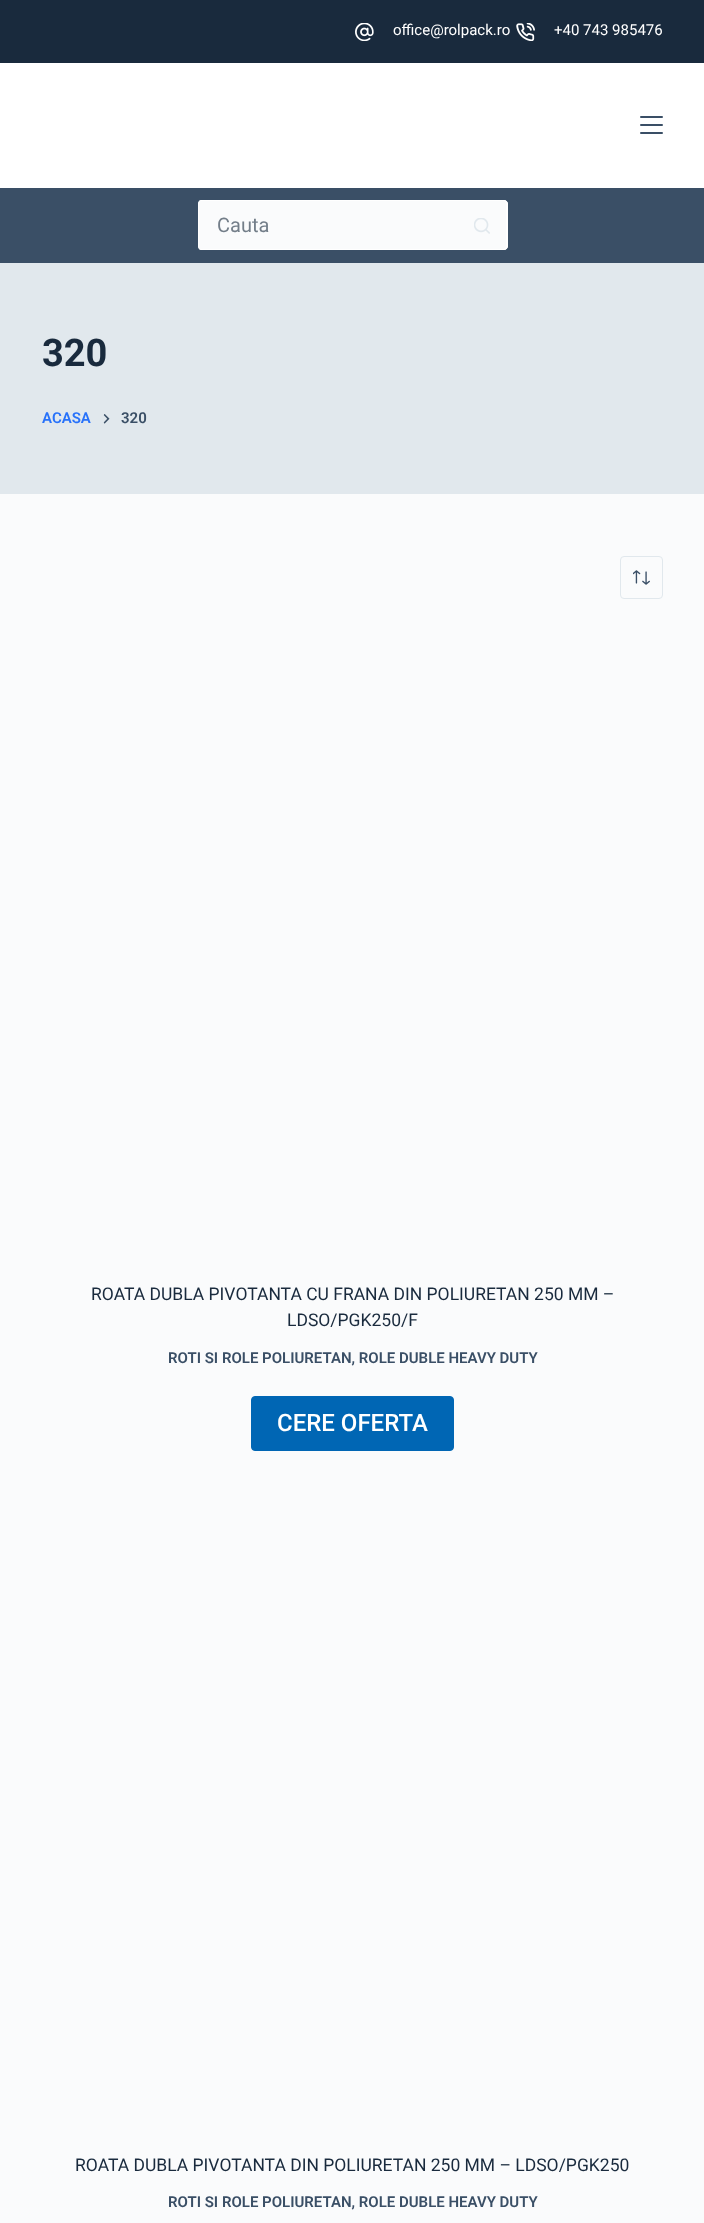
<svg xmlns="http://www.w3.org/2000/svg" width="704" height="2223">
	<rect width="100%" height="100%" fill="#FAFBFC" />
	<rect x="0" y="0" width="704" height="63" fill="#192A3D" />
	<image x="355" y="23" width="19" height="18" href="assets/img1.png" />
	<text x="393" y="35" font-family="Roboto" font-size="15" fill="#FFFFFF">office@rolpack.ro</text>
	<image x="516" y="23" width="19" height="18" href="assets/img2.png" />
	<text x="554" y="35" font-family="Roboto" font-size="15" fill="#FFFFFF">+40 743 985476</text>
	<rect x="0" y="63" width="704" height="125" fill="#FFFFFF" />
	<rect x="640" y="116" width="23" height="2" rx="1" fill="#3A4F66" />
	<rect x="640" y="124" width="23" height="2" rx="1" fill="#3A4F66" />
	<rect x="640" y="132" width="23" height="2" rx="1" fill="#3A4F66" />
	<rect x="0" y="188" width="704" height="75" fill="#3A4F66" />
	<path d="M202 200H458V250H202C200 250 198 248 198 246V204C198 202 200 200 202 200Z" fill="#FAFBFC" />
	<path d="M201 200H458V250H201C199 250 198 248 198 246V204C198 202 199 200 201 200ZM201 201H458V249H201C200 249 199 248 199 246V204C199 202 200 201 201 201Z" fill="#FFFFFF" fill-rule="evenodd" />
	<text x="217" y="232" font-family="Roboto" font-size="20" fill="#737E89">Cauta</text>
	<path d="M458 200H504C506 200 508 202 508 204V246C508 248 506 250 504 250H458Z" fill="#FAFBFC" />
	<path d="M458 200H504C506 200 508 202 508 204V246C508 248 506 250 504 250H458ZM458 201H504C505 201 506 202 506 204V246C506 248 505 249 504 249H458Z" fill="#FFFFFF" fill-rule="evenodd" />
	<image x="474" y="218" width="16" height="16" href="assets/img3.png" />
	<rect x="0" y="263" width="704" height="231" fill="#E1E8ED" />
	<text x="42" y="366" font-family="Roboto" font-size="38" font-weight="700" fill="#192A3D">320</text>
	<text x="42" y="423" font-family="Roboto" font-size="15" font-weight="600" fill="#2872FA">ACASA</text>
	<image x="103" y="414" width="7" height="10" href="assets/img4.png" />
	<text x="121" y="423" font-family="Roboto" font-size="15" font-weight="600" fill="#3A4F66">320</text>
	<rect x="620.5" y="556.5" width="42" height="42" rx="3.5" fill="none" stroke="#E1E8ED" />
	<image x="633" y="570" width="17" height="15" href="assets/img5.png" />
	<g font-family="Roboto" font-size="17.5" fill="#192A3D">
		<text x="91" y="1300">ROATA DUBLA PIVOTANTA CU FRANA DIN POLIURETAN 250 MM –</text>
		<text x="287" y="1326">LDSO/PGK250/F</text>
	</g>
	<text x="168" y="1363" font-family="Roboto" font-size="15" font-weight="600" fill="#3A4F66">ROTI SI ROLE POLIURETAN, ROLE DUBLE HEAVY DUTY</text>
	<rect x="251.5" y="1396.5" width="202" height="54" rx="3.5" fill="#0066B4" stroke="#0066B4" />
	<text x="277" y="1431" font-family="Roboto" font-size="24" font-weight="500" fill="#FFFFFF">CERE OFERTA</text>
	<text x="75" y="2171" font-family="Roboto" font-size="17.5" fill="#192A3D">ROATA DUBLA PIVOTANTA DIN POLIURETAN 250 MM – LDSO/PGK250</text>
	<text x="168" y="2207" font-family="Roboto" font-size="15" font-weight="600" fill="#3A4F66">ROTI SI ROLE POLIURETAN, ROLE DUBLE HEAVY DUTY</text>
</svg>
